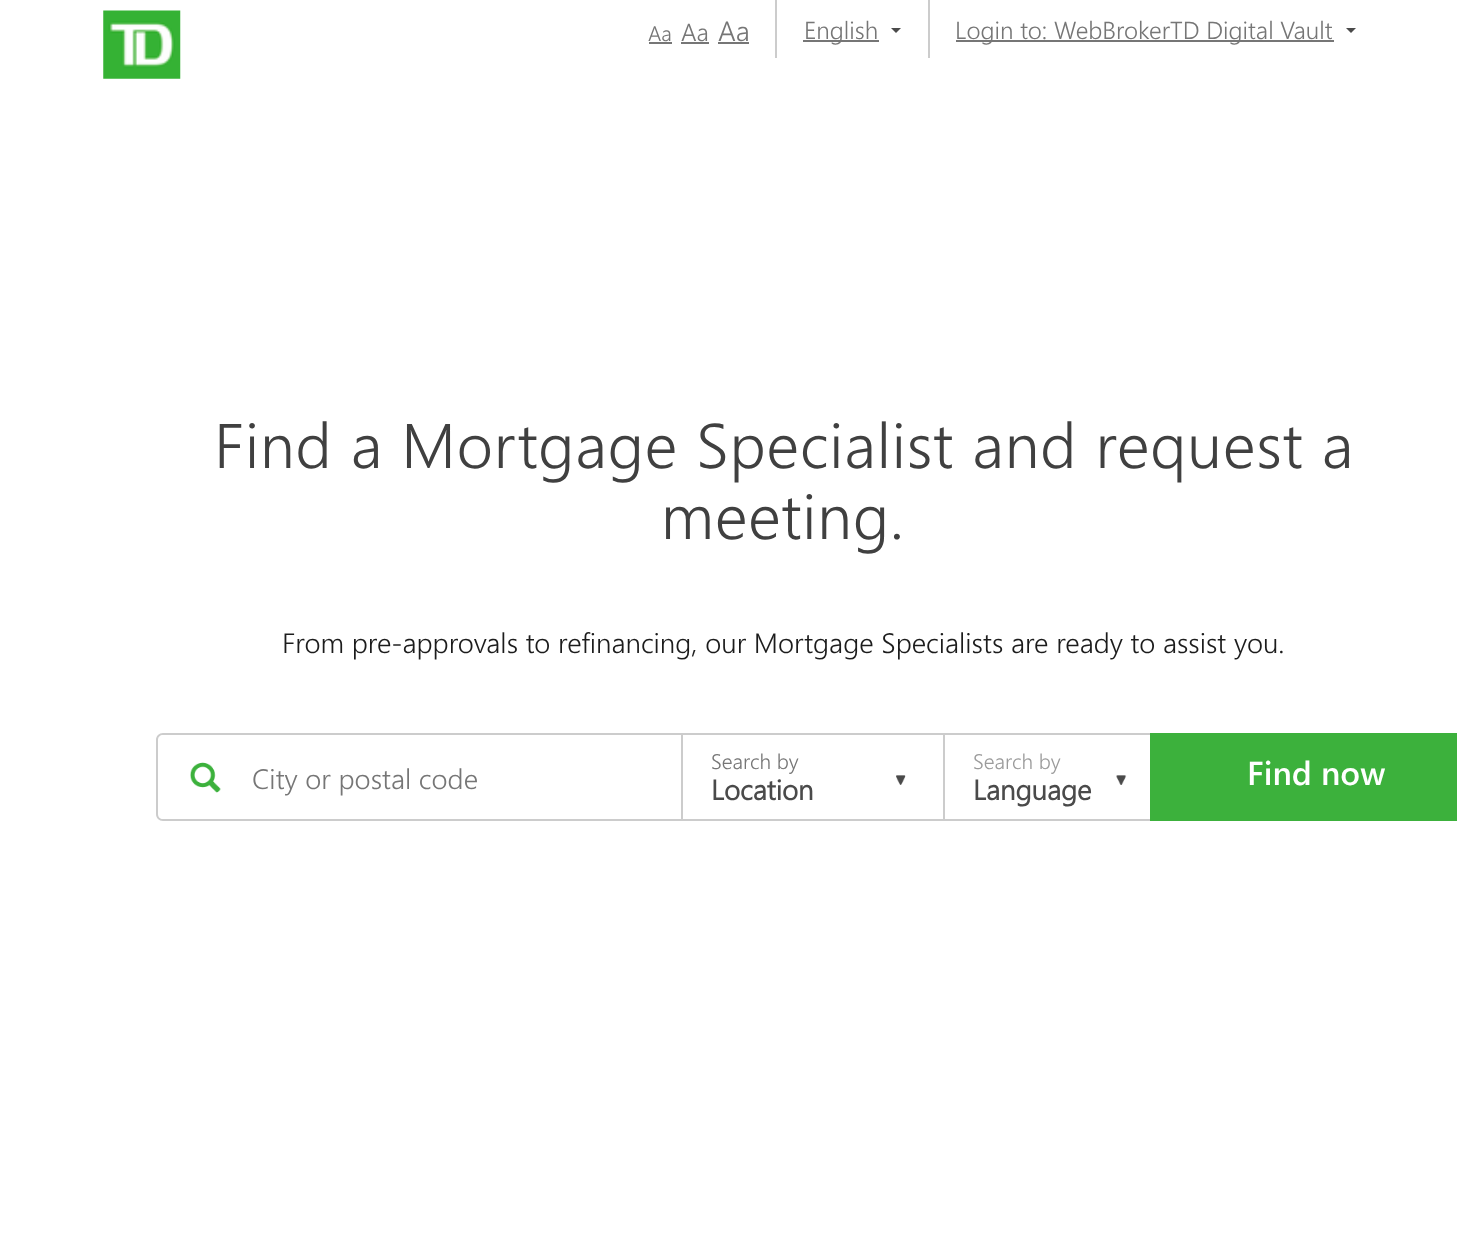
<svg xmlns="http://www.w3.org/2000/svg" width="1457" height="1250">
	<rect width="100%" height="100%" fill="#FFFFFF" />
	<image x="103" y="10" width="78" height="69" href="assets/img1.png" />
	<text x="648" y="41" font-family="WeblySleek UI" font-size="21" font-weight="300" fill="#767676">Aa</text>
	<rect x="649" y="42" width="23" height="2" fill="#767676" />
	<text x="681" y="41" font-family="WeblySleek UI" font-size="24.5" font-weight="300" fill="#767676">Aa</text>
	<rect x="681" y="42" width="28" height="2" fill="#767676" />
	<text x="718" y="41" font-family="WeblySleek UI" font-size="28" font-weight="300" fill="#767676">Aa</text>
	<rect x="718" y="42" width="31" height="2" fill="#767676" />
	<rect x="775" y="0" width="2" height="58" fill="#CCCCCC" />
	<rect x="803" y="40" width="76" height="2" fill="#767676" />
	<text x="804" y="39" font-family="WeblySleek UI" font-size="24.5" font-weight="300" fill="#767676">English</text>
	<path d="M891 28H901L896 33Z" fill="#4A4A4A" />
	<rect x="928" y="0" width="2" height="58" fill="#CCCCCC" />
	<rect x="956" y="40" width="378" height="2" fill="#767676" />
	<text x="955" y="39" font-family="WeblySleek UI" font-size="24.5" font-weight="300" fill="#767676">Login to: WebBrokerTD Digital Vault</text>
	<path d="M1346 28H1356L1351 33Z" fill="#4A4A4A" />
	<g font-family="WeblySleek UI" font-size="63" font-weight="300" letter-spacing="0.9" fill="#404040">
		<text x="214" y="468">Find a Mortgage Specialist and request a</text>
		<text x="661" y="539">meeting.</text>
	</g>
	<text x="282" y="653" font-family="WeblySleek UI" font-size="28" font-weight="300" fill="#1C1C1C">From pre-approvals to refinancing, our Mortgage Specialists are ready to assist you.</text>
	<image x="190" y="762" width="31" height="31" href="assets/img2.png" />
	<path d="M163 733H681V821H163C159 821 156 818 156 814V740C156 736 159 733 163 733ZM163 735H681V819H163C160 819 158 817 158 814V740C158 737 160 735 163 735Z" fill="#CCCCCC" fill-rule="evenodd" />
	<text x="252" y="789" font-family="WeblySleek UI" font-size="28" font-weight="300" fill="#767676">City or postal code</text>
	<image x="896" y="775" width="10" height="10" href="assets/img3.png" />
	<rect x="681" y="733" width="469" height="2" fill="#CCCCCC" />
	<rect x="681" y="819" width="469" height="2" fill="#CCCCCC" />
	<rect x="681" y="733" width="2" height="88" fill="#CCCCCC" />
	<text x="711" y="769" font-family="WeblySleek UI" font-size="21" font-weight="300" fill="#767676">Search by</text>
	<text x="711" y="800" font-family="WeblySleek UI" font-size="28" font-weight="700" fill="#4A4A4A">Location</text>
	<image x="1116" y="775" width="11" height="10" href="assets/img4.png" />
	<rect x="943" y="733" width="2" height="88" fill="#CCCCCC" />
	<text x="973" y="769" font-family="WeblySleek UI" font-size="21" font-weight="300" fill="#9B9B9B">Search by</text>
	<text x="973" y="800" font-family="WeblySleek UI" font-size="28" font-weight="700" fill="#4A4A4A">Language</text>
	<rect x="1150" y="733" width="307" height="88" fill="#3CB13C" />
	<text x="1247" y="785" font-family="WeblySleek UI" font-size="33.25" font-weight="600" fill="#FFFFFF">Find now</text>
</svg>
